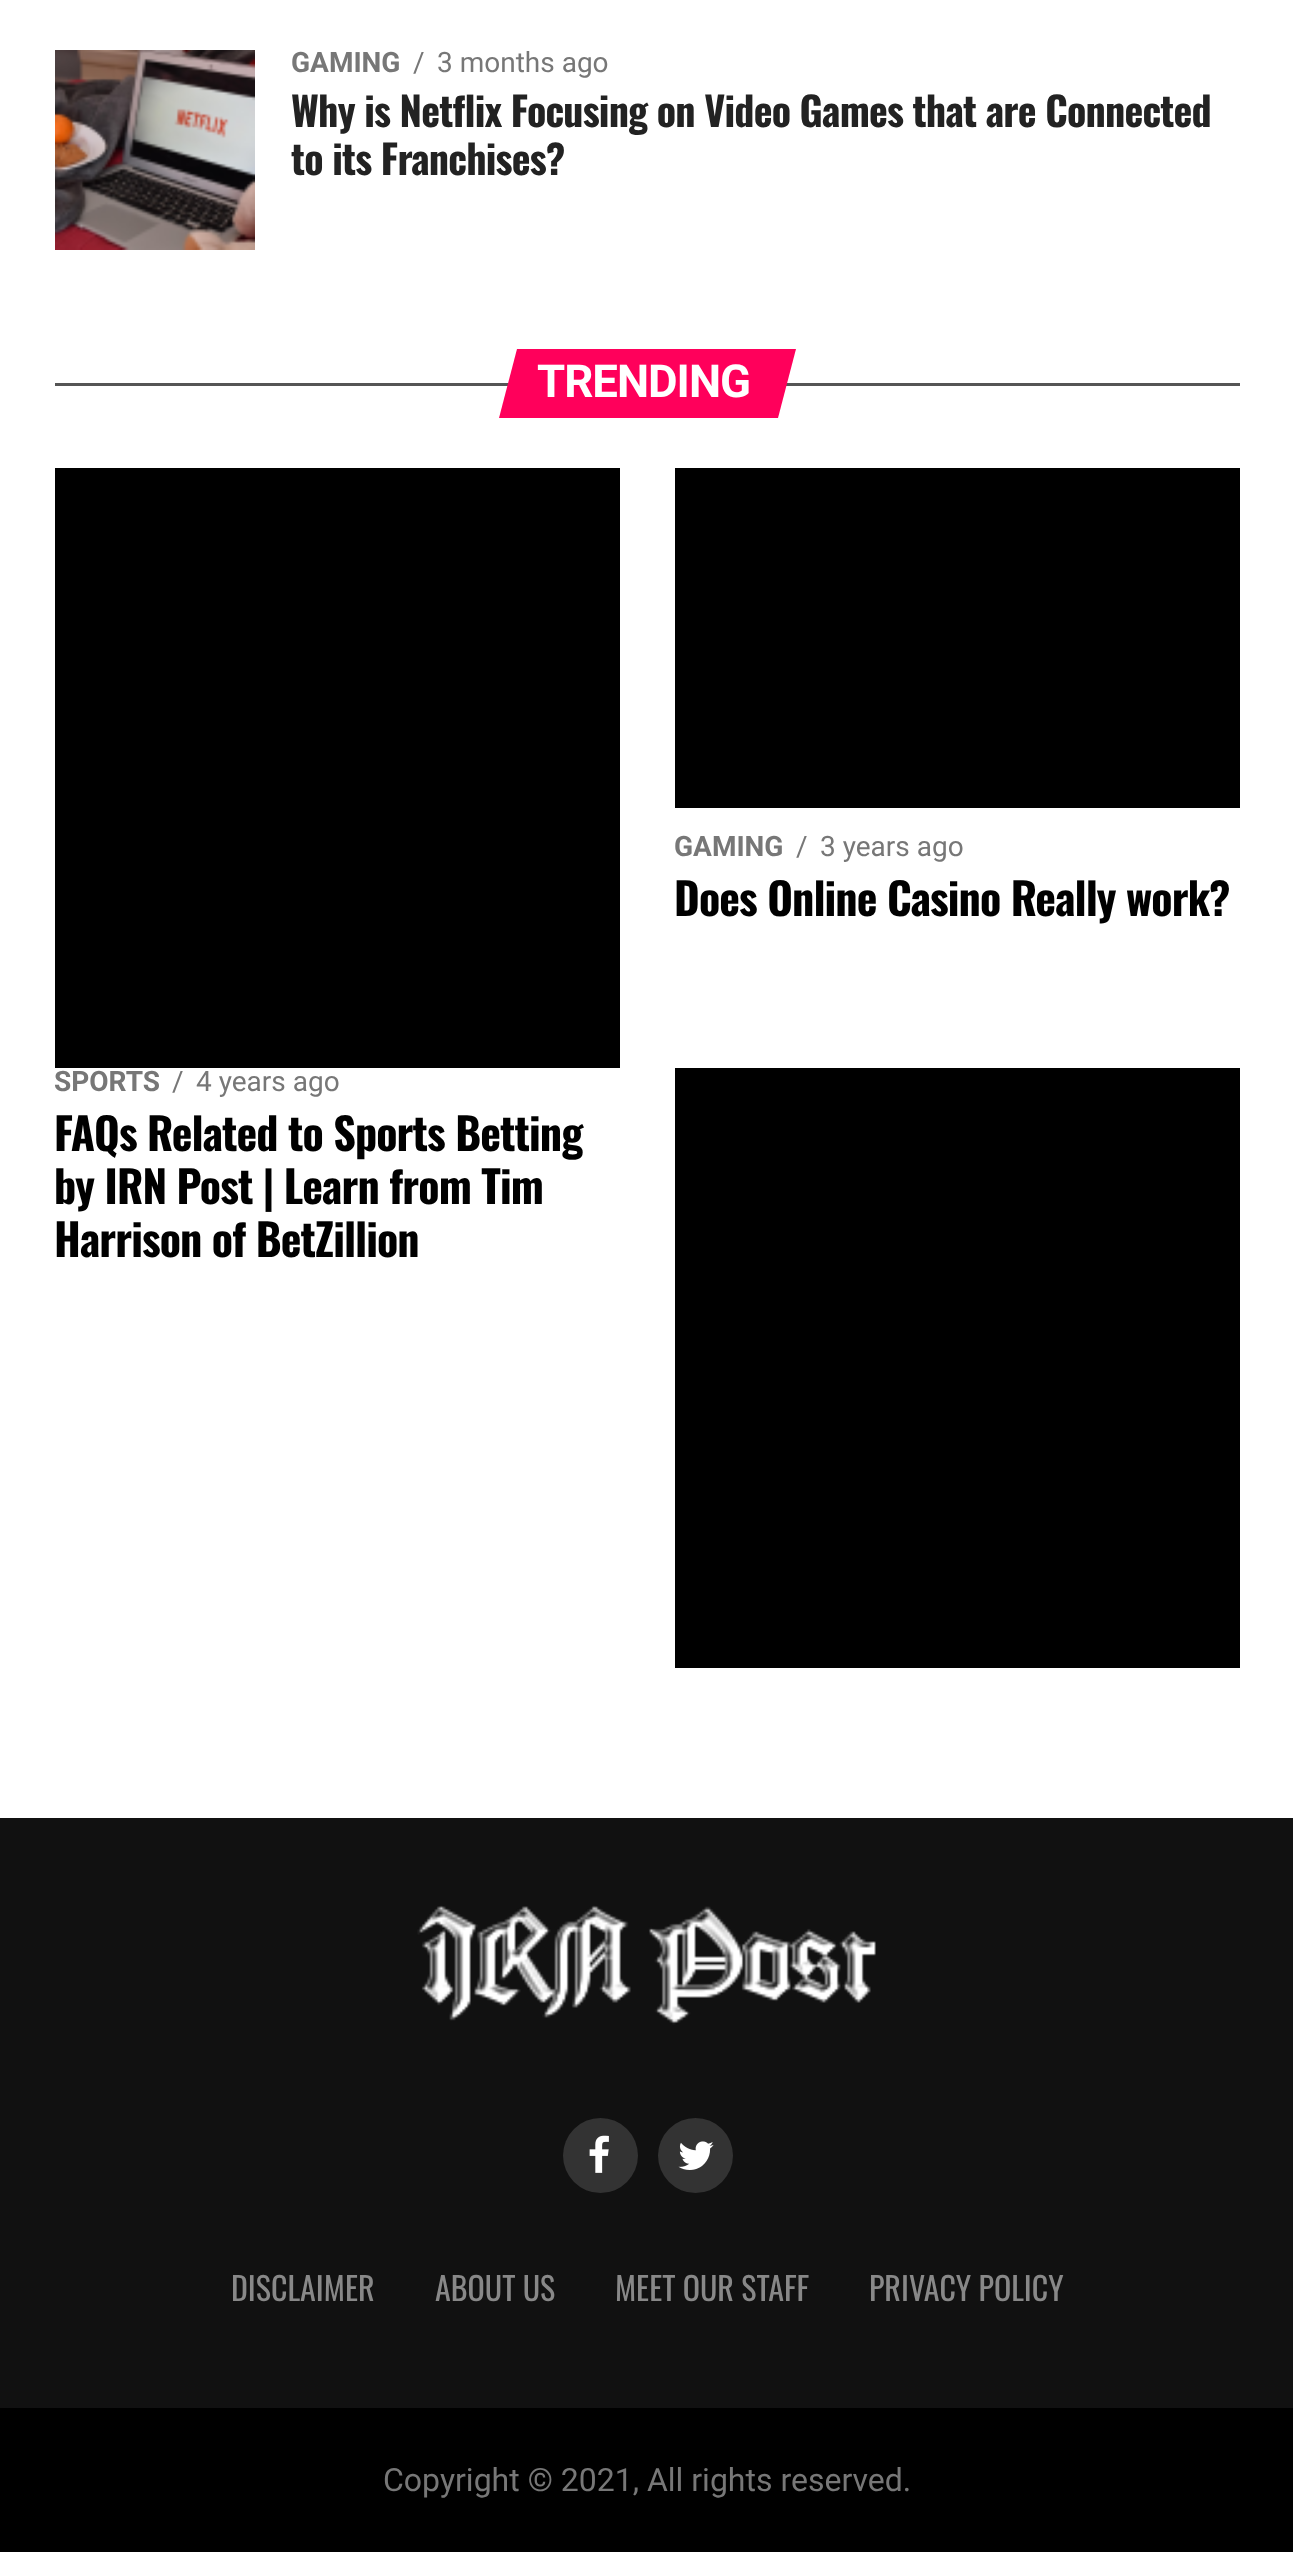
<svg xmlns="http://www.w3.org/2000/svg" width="1293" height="2552">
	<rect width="100%" height="100%" fill="#FFFFFF" />
	<image x="55" y="50" width="200" height="200" href="assets/img1.png" />
	<text x="291" y="72" font-family="Roboto" font-size="28" font-weight="700" fill="#777777">GAMING</text>
	<g font-family="Roboto" font-size="28" fill="#777777">
		<text x="413" y="72">/</text>
		<text x="437" y="72">3 months ago</text>
	</g>
	<g font-family="Oswald" font-size="40" font-weight="700" letter-spacing="-0.8" fill="#222222">
		<text x="291" y="127">Why is Netflix Focusing on Video Games that are Connected</text>
		<text x="291" y="175">to its Franchises?</text>
	</g>
	<rect x="55" y="383" width="1185" height="3" fill="#555555" />
	<path d="M517 349H796L778 418H499Z" fill="#FF005B" />
	<text x="537" y="397" font-family="Roboto" font-size="45.5" font-weight="700" letter-spacing="-1" fill="#FFFFFF">TRENDING</text>
	<rect x="55" y="468" width="565" height="600" fill="#000000" />
	<rect x="675" y="468" width="565" height="340" fill="#000000" />
	<text x="674" y="856" font-family="Roboto" font-size="28" font-weight="700" fill="#777777">GAMING</text>
	<g font-family="Roboto" font-size="28" fill="#777777">
		<text x="796" y="856">/</text>
		<text x="820" y="856">3 years ago</text>
	</g>
	<text x="674" y="916" font-family="Oswald" font-size="44" font-weight="700" letter-spacing="-0.9" fill="#000000">Does Online Casino Really work?</text>
	<text x="54" y="1091" font-family="Roboto" font-size="28" font-weight="700" fill="#777777">SPORTS</text>
	<g font-family="Roboto" font-size="28" fill="#777777">
		<text x="172" y="1091">/</text>
		<text x="196" y="1091">4 years ago</text>
	</g>
	<g font-family="Oswald" font-size="44" font-weight="700" letter-spacing="-0.9" fill="#000000">
		<text x="54" y="1151">FAQs Related to Sports Betting</text>
		<text x="54" y="1204">by IRN Post | Learn from Tim</text>
		<text x="54" y="1257">Harrison of BetZillion</text>
	</g>
	<rect x="675" y="1068" width="565" height="600" fill="#000000" />
	<rect x="0" y="1818" width="1293" height="590" fill="#111111" />
	<image x="417" y="1905" width="459" height="120" href="assets/img2.png" />
	<circle cx="600.5" cy="2155.5" r="37.5" fill="#333333" />
	<image x="589" y="2135" width="20" height="38" href="assets/img3.png" />
	<circle cx="695.5" cy="2155.5" r="37.5" fill="#333333" />
	<image x="678" y="2141" width="36" height="29" href="assets/img4.png" />
	<g font-family="Oswald" font-size="32" fill="#888888">
		<text x="231" y="2301">DISCLAIMER</text>
		<text x="435" y="2301">ABOUT US</text>
		<text x="615" y="2301">MEET OUR STAFF</text>
		<text x="869" y="2301">PRIVACY POLICY</text>
	</g>
	<rect x="0" y="2408" width="1293" height="144" fill="#000000" />
	<text x="383" y="2491" font-family="Roboto" font-size="32" fill="#777777">Copyright © 2021, All rights reserved.</text>
</svg>
